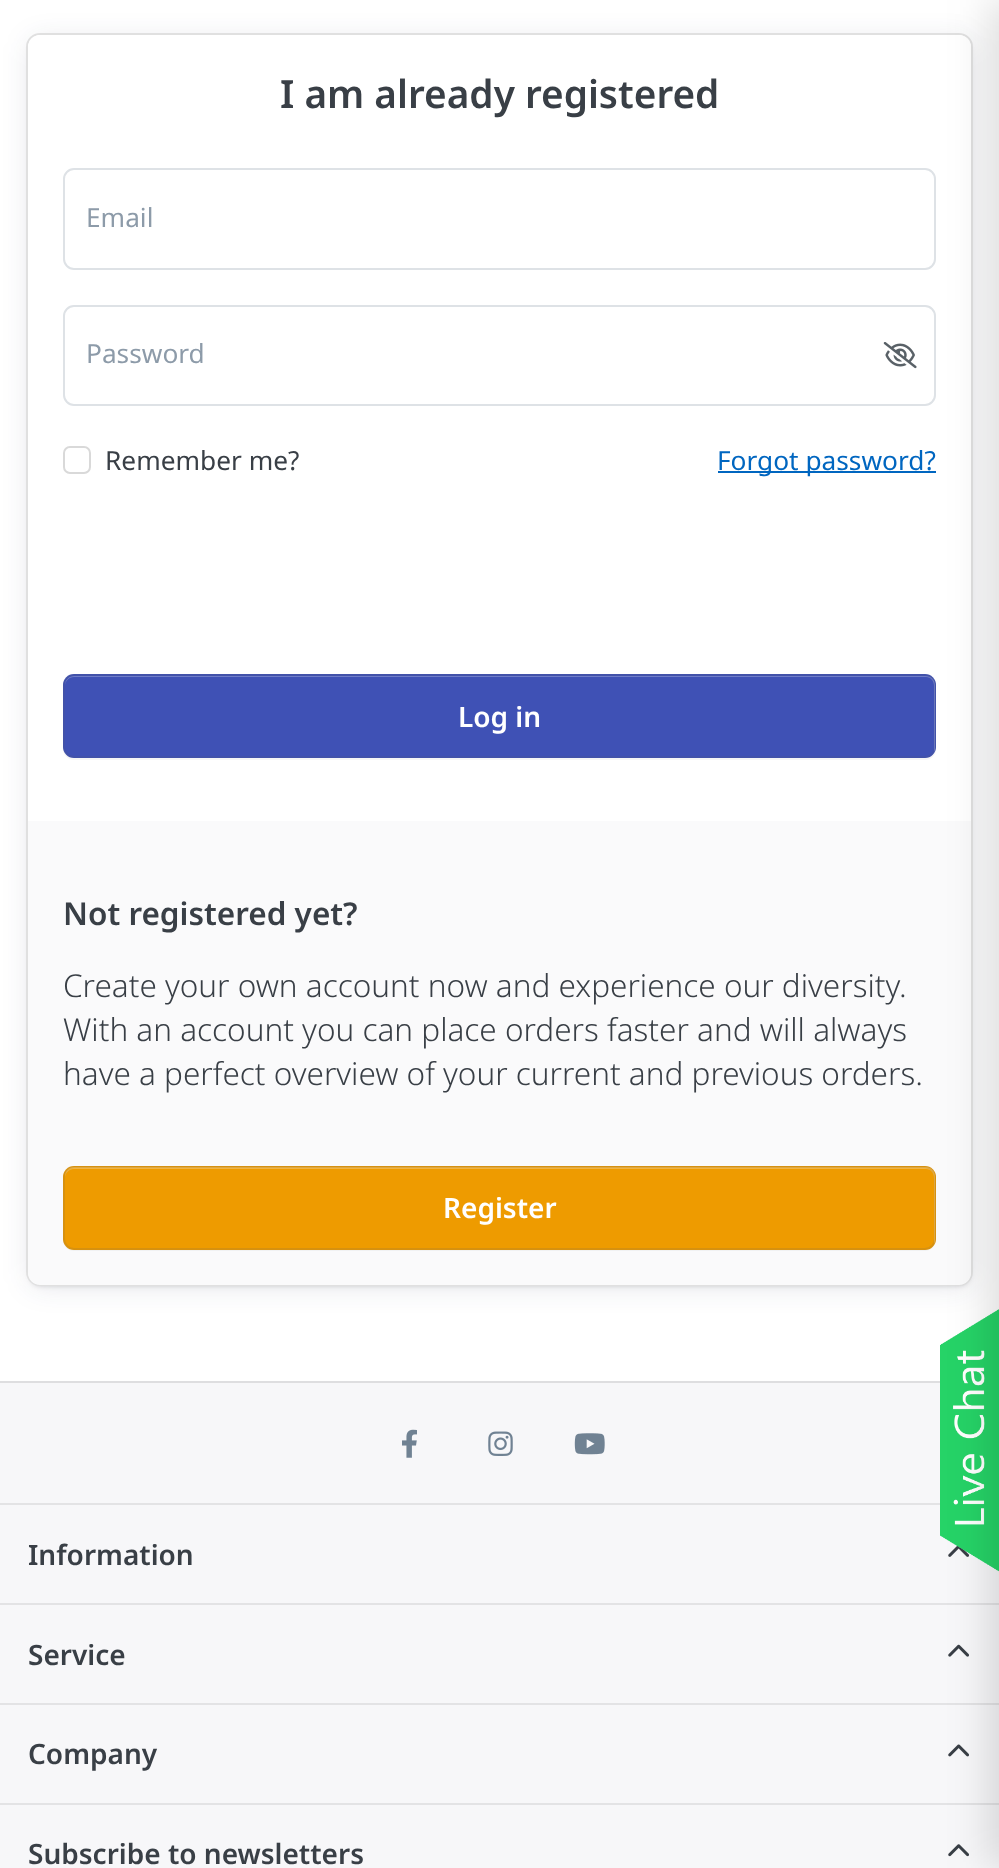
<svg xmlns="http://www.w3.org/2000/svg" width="999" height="1868">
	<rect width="100%" height="100%" fill="#FFFFFF" />
	<rect x="30" y="40" width="940" height="1246" rx="11" fill="#000000" fill-opacity="0.15" filter="blur(2.5px)" />
	<rect x="30" y="40" width="940" height="1246" rx="11" fill="#1A214B" fill-opacity="0.12" filter="blur(14px)" />
	<rect x="26" y="33" width="947" height="1253" rx="14" fill="#FFFFFF" />
	<rect x="27" y="34" width="945" height="1251" rx="13" fill="none" stroke="#000000" stroke-opacity="0.12" stroke-width="2" />
	<path d="M40 35H959C965.5 35 971 40.5 971 47V821H28V47C28 40.5 33.5 35 40 35Z" fill="#FFFFFF" />
	<text x="280" y="108" font-family="Noto Sans" font-size="38.75" font-weight="600" fill="#393F46">I am already registered</text>
	<rect x="64" y="169" width="871" height="100" rx="10" fill="none" stroke="#DEE2E6" stroke-width="2" />
	<text x="86" y="227" font-family="Noto Sans" font-size="26.25" fill="#8D9BA9">Email</text>
	<rect x="64" y="306" width="871" height="99" rx="10" fill="none" stroke="#DEE2E6" stroke-width="2" />
	<text x="86" y="363" font-family="Noto Sans" font-size="26.25" fill="#8D9BA9">Password</text>
	<image x="883" y="342" width="34" height="27" href="assets/img1.png" />
	<rect x="64" y="447" width="26" height="26" rx="6" fill="none" stroke="#D9D9D9" stroke-width="2" />
	<text x="105" y="470" font-family="Noto Sans" font-size="26.25" fill="#393F46">Remember me?</text>
	<rect x="718" y="471" width="218" height="2" fill="#0066C0" />
	<text x="717" y="470" font-family="Noto Sans" font-size="26.25" fill="#0066C0">Forgot password?</text>
	<path d="M63 747V749C63 755 68 760 74 760H925C931 760 936 755 936 750C935 754 931 758 926 758H74C68 758 63 753 63 747Z" fill="#F6F6F6" />
	<rect x="63" y="674" width="873" height="84" rx="11" fill="#3F51B5" />
	<path d="M74 677H926C931 677 934 681 934 686V752C935 750 935 749 935 747V685C935 680 931 676 926 676H74C69 676 65 680 65 685V686C65 681 69 677 74 677Z" fill="#6F7DC8" />
	<rect x="64" y="675" width="871" height="82" rx="10" fill="none" stroke="#596167" stroke-opacity="0.15" stroke-width="2" />
	<text x="458" y="727" font-family="Noto Sans" font-size="28" font-weight="600" fill="#FFFFFF">Log in</text>
	<path d="M28 821H971V1273C971 1279.5 965.5 1285 959 1285H40C33.5 1285 28 1279.5 28 1273Z" fill="#FAFAFB" />
	<text x="63" y="925" font-family="Noto Sans" font-size="31.5" font-weight="600" fill="#393F46">Not registered yet?</text>
	<g font-family="Noto Sans" font-size="31.5" font-weight="300" fill="#393F46">
		<text x="63" y="997">Create your own account now and experience our diversity.</text>
		<text x="63" y="1041">With an account you can place orders faster and will always</text>
		<text x="63" y="1085">have a perfect overview of your current and previous orders.</text>
	</g>
	<path d="M63 1239V1240C63 1246 68 1251 74 1251H925C930 1251 935 1247 936 1242C935 1246 931 1250 926 1250H74C68 1250 63 1245 63 1239Z" fill="#F1F2F3" />
	<rect x="63" y="1166" width="873" height="84" rx="11" fill="#EE9B00" />
	<path d="M74 1169H926C931 1169 934 1173 934 1178V1244C935 1242 935 1241 935 1239V1176C935 1171 931 1167 926 1167H74C69 1167 65 1171 65 1176V1178C65 1173 69 1169 74 1169Z" fill="#F2B440" />
	<rect x="64" y="1167" width="871" height="82" rx="10" fill="none" stroke="#596167" stroke-opacity="0.15" stroke-width="2" />
	<text x="443" y="1218" font-family="Noto Sans" font-size="28" font-weight="600" fill="#FFFFFF">Register</text>
	<rect x="0" y="1383" width="999" height="485" fill="#F7F7F9" />
	<image x="948" y="1546" width="21" height="11" href="assets/img6.png" />
	<image x="940" y="1309" width="59" height="263" href="assets/img2.png" />
	<rect x="0" y="1381" width="940" height="2" fill="#DEDEE0" />
	<rect x="0" y="1503" width="940" height="2" fill="#E3E3E5" />
	<rect x="0" y="1603" width="999" height="2" fill="#E3E3E5" />
	<rect x="0" y="1703" width="999" height="2" fill="#E3E3E5" />
	<image x="948" y="1644" width="21" height="13" href="assets/img7.png" />
	<rect x="0" y="1803" width="999" height="2" fill="#E3E3E5" />
	<image x="948" y="1744" width="21" height="13" href="assets/img8.png" />
	<image x="948" y="1844" width="21" height="13" href="assets/img9.png" />
	<rect x="991" y="0" width="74" height="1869" fill="#000000" fill-opacity="0.15" filter="blur(22px)" />
	<image x="402" y="1429" width="15" height="29" href="assets/img3.png" />
	<image x="488" y="1431" width="25" height="25" href="assets/img4.png" />
	<image x="574" y="1433" width="31" height="22" href="assets/img5.png" />
	<g font-family="Noto Sans" font-size="28" font-weight="600" fill="#393F46">
		<text x="28" y="1565">Information</text>
		<text x="28" y="1665">Service</text>
		<text x="28" y="1764">Company</text>
		<text x="28" y="1864">Subscribe to newsletters</text>
	</g>
</svg>
